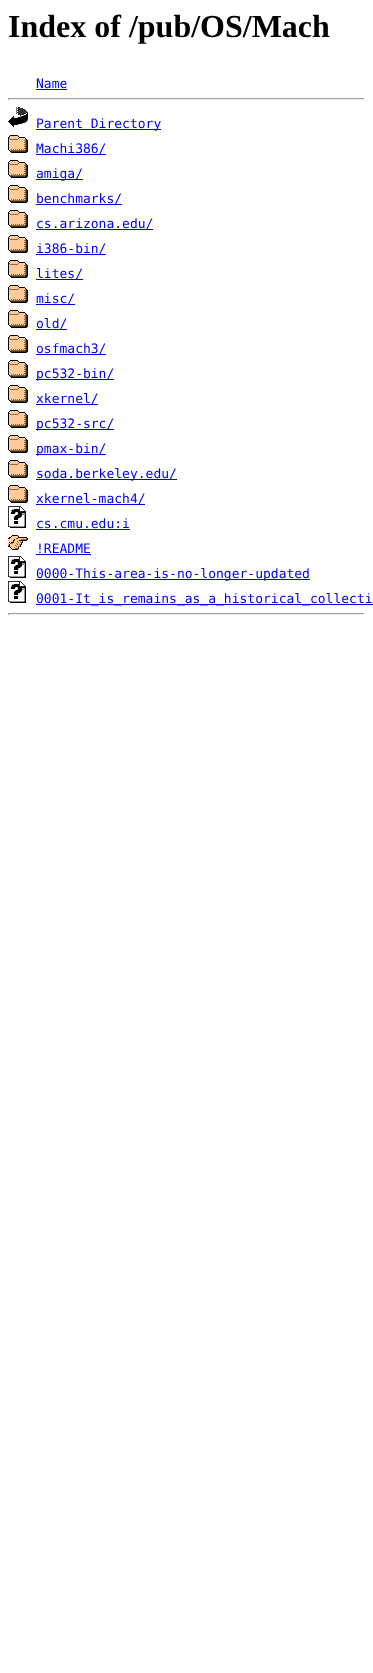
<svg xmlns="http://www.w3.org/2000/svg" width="373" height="1673">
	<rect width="100%" height="100%" fill="#FFFFFF" />
	<text x="8" y="37" font-family="Liberation Serif" font-size="32" font-weight="700" fill="#000000">Index of /pub/OS/Mach</text>
	<text x="36" y="88" font-family="DejaVu Sans Mono" font-size="13" fill="#0000EE">Name</text>
	<rect x="36" y="89" width="31" height="1" fill="#0000EE" />
	<rect x="8" y="98" width="357" height="1" fill="#9F9F9F" />
	<rect x="364" y="98" width="1" height="2" fill="#EEEEEE" />
	<rect x="8" y="99" width="357" height="1" fill="#EEEEEE" />
	<rect x="8" y="98" width="1" height="2" fill="#9F9F9F" />
	<image x="8" y="107" width="20" height="20" href="assets/img1.png" />
	<rect x="36" y="129" width="125" height="1" fill="#0000EE" />
	<text x="36" y="128" font-family="DejaVu Sans Mono" font-size="13" fill="#0000EE">Parent Directory</text>
	<image x="8" y="135" width="20" height="18" href="assets/img2.png" />
	<rect x="36" y="154" width="70" height="1" fill="#0000EE" />
	<text x="36" y="153" font-family="DejaVu Sans Mono" font-size="13" fill="#0000EE">Machi386/</text>
	<image x="8" y="160" width="20" height="18" href="assets/img2.png" />
	<rect x="36" y="179" width="47" height="1" fill="#0000EE" />
	<text x="36" y="178" font-family="DejaVu Sans Mono" font-size="13" fill="#0000EE">amiga/</text>
	<image x="8" y="185" width="20" height="18" href="assets/img2.png" />
	<rect x="36" y="204" width="86" height="1" fill="#0000EE" />
	<text x="36" y="203" font-family="DejaVu Sans Mono" font-size="13" fill="#0000EE">benchmarks/</text>
	<image x="8" y="210" width="20" height="18" href="assets/img2.png" />
	<rect x="36" y="229" width="117" height="1" fill="#0000EE" />
	<text x="36" y="228" font-family="DejaVu Sans Mono" font-size="13" fill="#0000EE">cs.arizona.edu/</text>
	<image x="8" y="235" width="20" height="18" href="assets/img2.png" />
	<rect x="36" y="254" width="70" height="1" fill="#0000EE" />
	<text x="36" y="253" font-family="DejaVu Sans Mono" font-size="13" fill="#0000EE">i386-bin/</text>
	<image x="8" y="260" width="20" height="18" href="assets/img2.png" />
	<rect x="36" y="279" width="47" height="1" fill="#0000EE" />
	<text x="36" y="278" font-family="DejaVu Sans Mono" font-size="13" fill="#0000EE">lites/</text>
	<image x="8" y="285" width="20" height="18" href="assets/img2.png" />
	<rect x="36" y="304" width="39" height="1" fill="#0000EE" />
	<text x="36" y="303" font-family="DejaVu Sans Mono" font-size="13" fill="#0000EE">misc/</text>
	<image x="8" y="310" width="20" height="18" href="assets/img2.png" />
	<rect x="36" y="329" width="31" height="1" fill="#0000EE" />
	<text x="36" y="328" font-family="DejaVu Sans Mono" font-size="13" fill="#0000EE">old/</text>
	<image x="8" y="335" width="20" height="18" href="assets/img2.png" />
	<rect x="36" y="354" width="70" height="1" fill="#0000EE" />
	<text x="36" y="353" font-family="DejaVu Sans Mono" font-size="13" fill="#0000EE">osfmach3/</text>
	<image x="8" y="360" width="20" height="18" href="assets/img2.png" />
	<rect x="36" y="379" width="78" height="1" fill="#0000EE" />
	<text x="36" y="378" font-family="DejaVu Sans Mono" font-size="13" fill="#0000EE">pc532-bin/</text>
	<image x="8" y="385" width="20" height="18" href="assets/img2.png" />
	<rect x="36" y="404" width="62" height="1" fill="#0000EE" />
	<text x="36" y="403" font-family="DejaVu Sans Mono" font-size="13" fill="#0000EE">xkernel/</text>
	<image x="8" y="410" width="20" height="18" href="assets/img2.png" />
	<rect x="36" y="429" width="78" height="1" fill="#0000EE" />
	<text x="36" y="428" font-family="DejaVu Sans Mono" font-size="13" fill="#0000EE">pc532-src/</text>
	<image x="8" y="435" width="20" height="18" href="assets/img2.png" />
	<rect x="36" y="454" width="70" height="1" fill="#0000EE" />
	<text x="36" y="453" font-family="DejaVu Sans Mono" font-size="13" fill="#0000EE">pmax-bin/</text>
	<image x="8" y="460" width="20" height="18" href="assets/img2.png" />
	<rect x="36" y="479" width="141" height="1" fill="#0000EE" />
	<text x="36" y="478" font-family="DejaVu Sans Mono" font-size="13" fill="#0000EE">soda.berkeley.edu/</text>
	<image x="8" y="485" width="20" height="18" href="assets/img2.png" />
	<rect x="36" y="504" width="109" height="1" fill="#0000EE" />
	<text x="36" y="503" font-family="DejaVu Sans Mono" font-size="13" fill="#0000EE">xkernel-mach4/</text>
	<image x="8" y="506" width="18" height="22" href="assets/img3.png" />
	<text x="36" y="528" font-family="DejaVu Sans Mono" font-size="13" fill="#0000EE">cs.cmu.edu:i</text>
	<rect x="36" y="529" width="94" height="1" fill="#0000EE" />
	<image x="8" y="535" width="20" height="15" href="assets/img4.png" />
	<text x="36" y="553" font-family="DejaVu Sans Mono" font-size="13" fill="#0000EE">!README</text>
	<rect x="36" y="554" width="55" height="1" fill="#0000EE" />
	<image x="8" y="556" width="18" height="22" href="assets/img3.png" />
	<rect x="36" y="579" width="274" height="1" fill="#0000EE" />
	<text x="36" y="578" font-family="DejaVu Sans Mono" font-size="13" fill="#0000EE">0000-This-area-is-no-longer-updated</text>
	<image x="8" y="581" width="18" height="22" href="assets/img3.png" />
	<rect x="36" y="604" width="337" height="1" fill="#0000EE" />
	<text x="36" y="603" font-family="DejaVu Sans Mono" font-size="13" fill="#0000EE">0001-It_is_remains_as_a_historical_collecti</text>
	<rect x="8" y="613" width="357" height="1" fill="#9F9F9F" />
	<rect x="364" y="613" width="1" height="2" fill="#EEEEEE" />
	<rect x="8" y="614" width="357" height="1" fill="#EEEEEE" />
	<rect x="8" y="613" width="1" height="2" fill="#9F9F9F" />
</svg>
